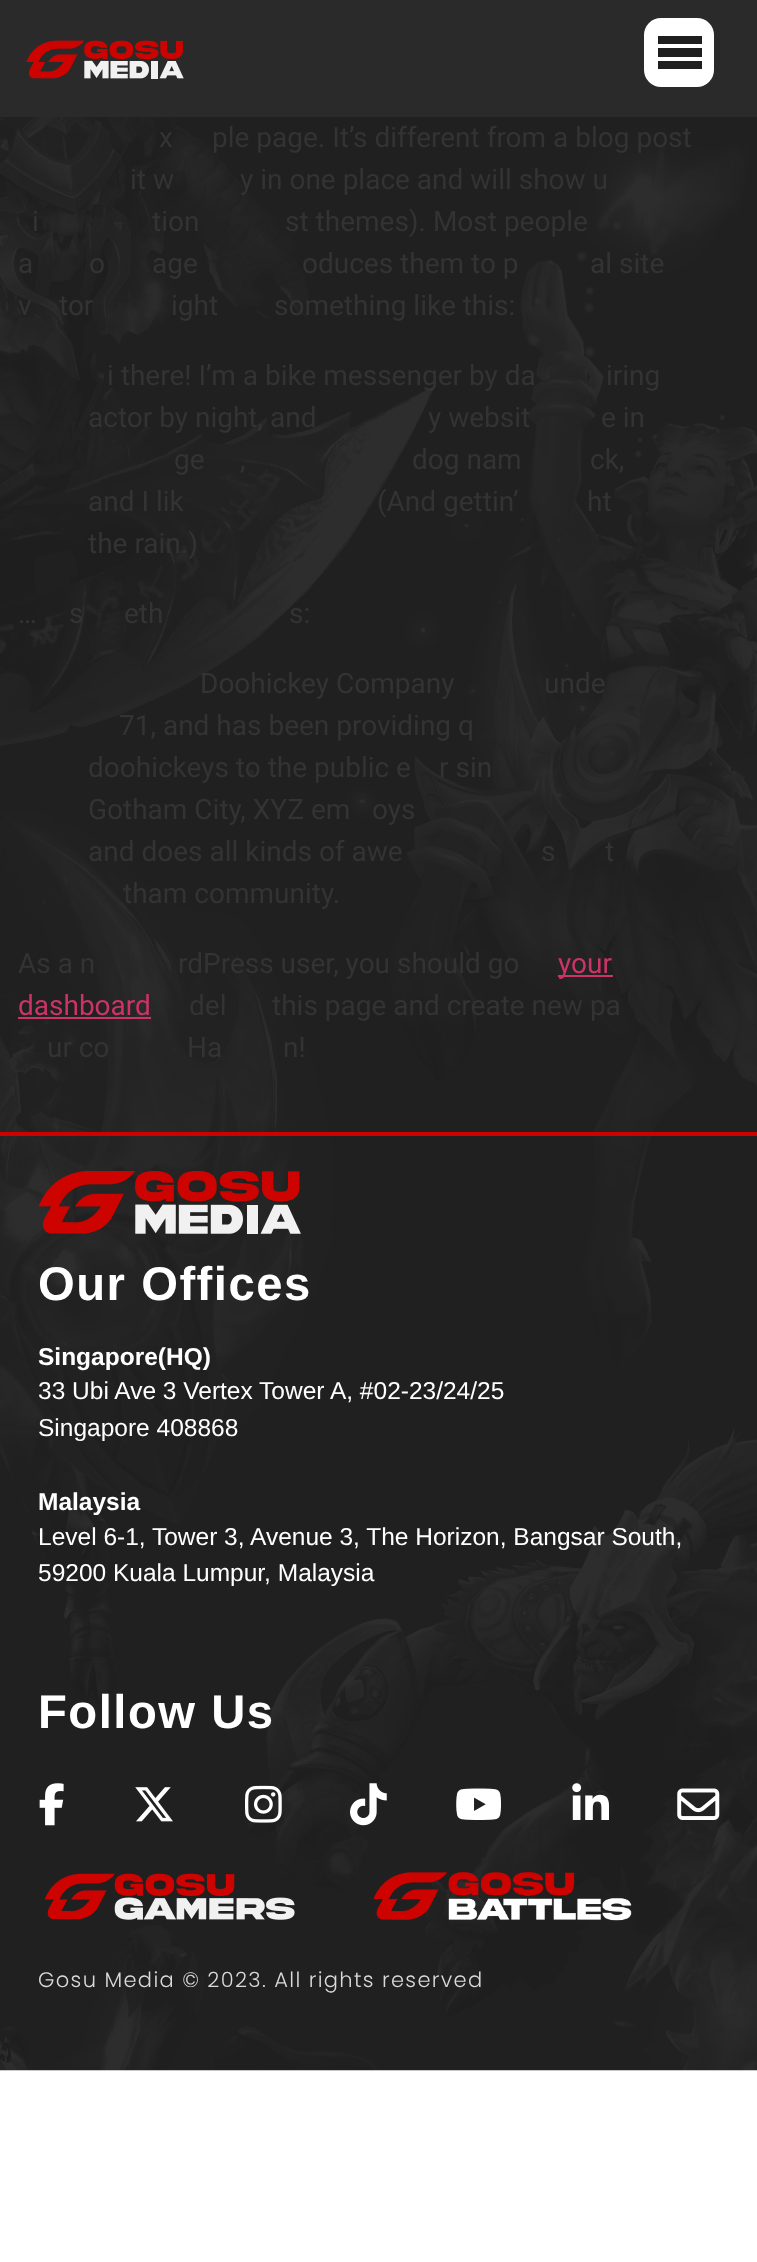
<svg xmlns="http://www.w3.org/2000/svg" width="757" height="2262">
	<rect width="100%" height="100%" fill="#FFFFFF" />
	<image x="0" y="117" width="757" height="1954" href="assets/img1.png" />
	<rect x="0" y="0" width="757" height="117" fill="#2A2A2A" />
	<image x="26" y="40" width="158" height="39" href="assets/img2.png" />
	<rect x="644" y="18" width="70" height="69" rx="17" fill="#FFFFFF" />
	<rect x="658" y="36" width="44" height="8" fill="#1F1F1F" />
	<rect x="658" y="48" width="44" height="9" fill="#1F1F1F" />
	<rect x="658" y="61" width="44" height="8" fill="#1F1F1F" />
	<g font-family="Roboto" font-size="28" fill="#333333">
		<text x="159" y="147">x</text>
		<text x="212" y="147">ple page. It’s different from a blog post</text>
		<text x="130" y="189">it w</text>
		<text x="240" y="189">y in one place and will show u</text>
		<text x="32" y="231">i</text>
		<text x="152" y="231">tion</text>
		<text x="285" y="231">st themes). Most people</text>
		<text x="18" y="273">a</text>
		<text x="89" y="273">o</text>
		<text x="152" y="273">age</text>
		<text x="302" y="273">oduces them to p</text>
		<text x="590" y="273">al site</text>
		<text x="18" y="315">v</text>
		<text x="59" y="315">tor</text>
		<text x="171" y="315">ight</text>
		<text x="274" y="315">something like this:</text>
		<text x="107" y="385">i there! I’m a bike messenger by da</text>
		<text x="606" y="385">iring</text>
		<text x="88" y="427">actor by night, and</text>
		<text x="428" y="427">y websit</text>
		<text x="601" y="427">e in</text>
		<text x="174" y="469">ge</text>
		<text x="240" y="469">,</text>
		<text x="412" y="469">dog nam</text>
		<text x="590" y="469">ck,</text>
		<text x="88" y="511">and I lik</text>
		<text x="377" y="511">(And gettin’</text>
		<text x="587" y="511">ht</text>
		<text x="88" y="553">the rain.)</text>
		<text x="18" y="623">…</text>
		<text x="69" y="623">s</text>
		<text x="124" y="623">eth</text>
		<text x="289" y="623">s:</text>
		<text x="200" y="693">Doohickey Company</text>
		<text x="544" y="693">unde</text>
		<text x="119" y="735">71, and has been providing q</text>
		<text x="88" y="777">doohickeys to the public e</text>
		<text x="439" y="777">r sin</text>
		<text x="88" y="819">Gotham City, XYZ em</text>
		<text x="372" y="819">oys</text>
		<text x="88" y="861">and does all kinds of awe</text>
		<text x="541" y="861">s</text>
		<text x="605" y="861">t</text>
		<text x="123" y="903">tham community.</text>
		<text x="18" y="973">As a n</text>
		<text x="178" y="973">rdPress user, you should go</text>
	</g>
	<rect x="558" y="975" width="55" height="2" fill="#CC3366" />
	<g font-family="Roboto" font-size="28" fill="#CC3366">
		<text x="558" y="973">your</text>
		<text x="18" y="1015">dashboard</text>
	</g>
	<rect x="18" y="1017" width="133" height="2" fill="#CC3366" />
	<g font-family="Roboto" font-size="28" fill="#333333">
		<text x="189" y="1015">del</text>
		<text x="272" y="1015">this page and create new pa</text>
		<text x="47" y="1057">ur co</text>
		<text x="187" y="1057">Ha</text>
		<text x="283" y="1057">n!</text>
	</g>
	<rect x="0" y="1132" width="757" height="4" fill="#CE0100" />
	<image x="39" y="1171" width="262" height="63" href="assets/img3.png" />
	<text x="38" y="1300" font-family="Liberation Sans" font-size="47.25" font-weight="700" letter-spacing="1.5" fill="#FFFFFF">Our Offices</text>
	<text x="38" y="1365" font-family="Liberation Sans" font-size="24.5" font-weight="700" fill="#FFFFFF">Singapore(HQ)</text>
	<g font-family="Liberation Sans" font-size="24.5" fill="#FFFFFF">
		<text x="38" y="1399">33 Ubi Ave 3 Vertex Tower A, #02-23/24/25</text>
		<text x="38" y="1436">Singapore 408868</text>
	</g>
	<text x="38" y="1510" font-family="Liberation Sans" font-size="24.5" font-weight="700" fill="#FFFFFF">Malaysia</text>
	<g font-family="Liberation Sans" font-size="24.5" fill="#FFFFFF">
		<text x="38" y="1545">Level 6-1, Tower 3, Avenue 3, The Horizon, Bangsar South,</text>
		<text x="38" y="1581">59200 Kuala Lumpur, Malaysia</text>
	</g>
	<text x="38" y="1728" font-family="Liberation Sans" font-size="47.25" font-weight="700" letter-spacing="1.5" fill="#FFFFFF">Follow Us</text>
	<image x="39" y="1783" width="25" height="43" href="assets/img4.png" />
	<image x="135" y="1787" width="38" height="35" href="assets/img5.png" />
	<image x="245" y="1785" width="37" height="38" href="assets/img6.png" />
	<image x="350" y="1783" width="37" height="43" href="assets/img7.png" />
	<image x="456" y="1788" width="45" height="32" href="assets/img8.png" />
	<image x="572" y="1783" width="37" height="37" href="assets/img9.png" />
	<image x="677" y="1788" width="43" height="32" href="assets/img10.png" />
	<image x="44" y="1873" width="251" height="47" href="assets/img11.png" />
	<image x="373" y="1872" width="259" height="49" href="assets/img12.png" />
	<text x="38" y="1987" font-family="Poppins" font-size="21" font-weight="300" letter-spacing="1.35" fill="#DADADA">Gosu Media © 2023. All rights reserved</text>
</svg>
